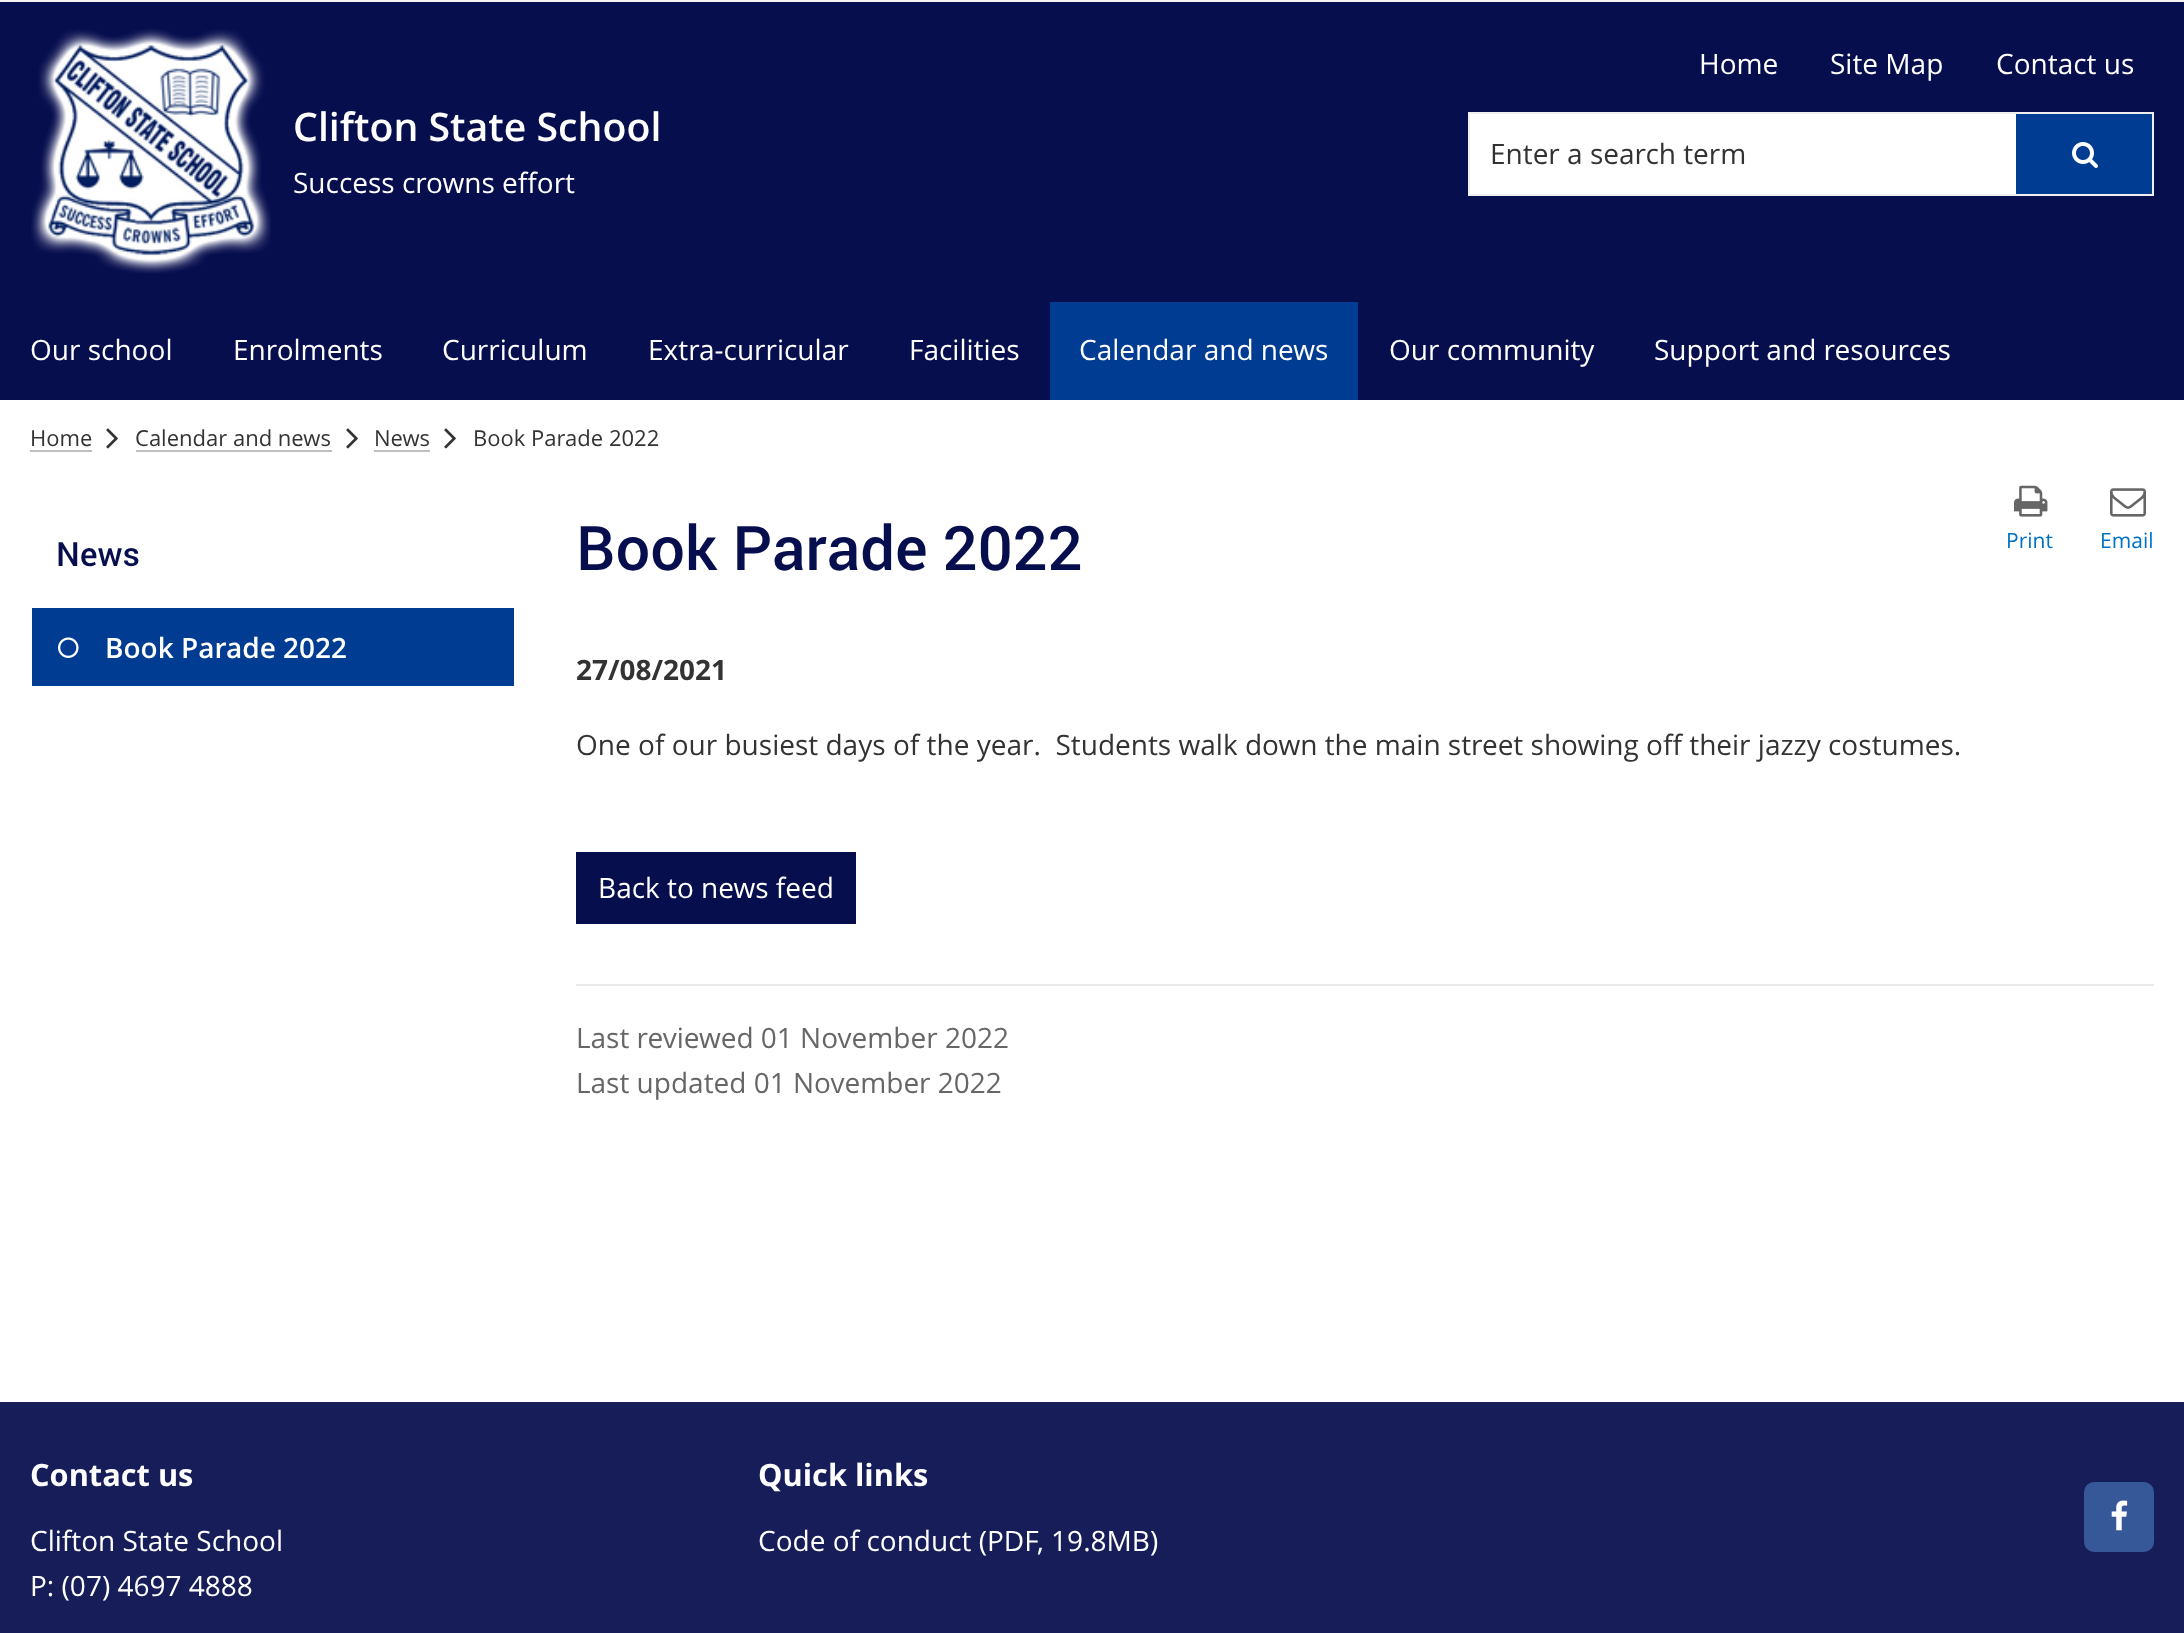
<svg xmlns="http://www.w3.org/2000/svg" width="2184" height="1633">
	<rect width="100%" height="100%" fill="#FFFFFF" />
	<rect x="0" y="0" width="2184" height="2" fill="#F3F3F3" />
	<rect x="0" y="2" width="2184" height="398" fill="#070E4E" />
	<image x="31" y="29" width="240" height="245" href="assets/img1.png" />
	<text x="293" y="141" font-family="Open Sans" font-size="39.25" font-weight="600" fill="#FFFFFF">Clifton State School</text>
	<g font-family="Open Sans" font-size="28" fill="#FFFFFF">
		<text x="293" y="193">Success crowns effort</text>
		<text x="1699" y="74">Home</text>
		<text x="1830" y="74">Site Map</text>
		<text x="1996" y="74">Contact us</text>
	</g>
	<rect x="1469" y="113" width="684" height="82" fill="none" stroke="#EFEFEF" stroke-width="2" />
	<rect x="1470" y="114" width="546" height="80" fill="#FFFFFF" />
	<text x="1490" y="164" font-family="Open Sans" font-size="28" fill="#333333">Enter a search term</text>
	<rect x="2016" y="114" width="136" height="80" fill="#003C91" />
	<image x="2072" y="142" width="26" height="26" href="assets/img2.png" />
	<g font-family="Open Sans" font-size="28" fill="#FFFFFF">
		<text x="30" y="360">Our school</text>
		<text x="233" y="360">Enrolments</text>
		<text x="442" y="360">Curriculum</text>
		<text x="648" y="360">Extra-curricular</text>
		<text x="909" y="360">Facilities</text>
	</g>
	<rect x="1050" y="302" width="308" height="98" fill="#003C91" />
	<g font-family="Open Sans" font-size="28" fill="#FFFFFF">
		<text x="1079" y="360">Calendar and news</text>
		<text x="1389" y="360">Our community</text>
		<text x="1654" y="360">Support and resources</text>
	</g>
	<text x="30" y="446" font-family="Open Sans" font-size="22" fill="#333333">Home</text>
	<rect x="30" y="450" width="62" height="2" fill="#BFBFBF" />
	<image x="106" y="428" width="12" height="21" href="assets/img3.png" />
	<text x="135" y="446" font-family="Open Sans" font-size="22" fill="#333333">Calendar and news</text>
	<rect x="136" y="450" width="196" height="2" fill="#BFBFBF" />
	<image x="346" y="428" width="12" height="21" href="assets/img3.png" />
	<text x="374" y="446" font-family="Open Sans" font-size="22" fill="#333333">News</text>
	<rect x="374" y="450" width="56" height="2" fill="#BFBFBF" />
	<image x="444" y="428" width="12" height="21" href="assets/img3.png" />
	<text x="473" y="446" font-family="Open Sans" font-size="22" fill="#333333">Book Parade 2022</text>
	<text x="56" y="566" font-family="Roboto" font-size="33.5" font-weight="500" fill="#070E4E">News</text>
	<rect x="32" y="608" width="482" height="78" fill="#003C91" />
	<image x="58" y="637" width="21" height="21" href="assets/img4.png" />
	<text x="105" y="658" font-family="Open Sans" font-size="28" font-weight="600" fill="#FFFFFF">Book Parade 2022</text>
	<text x="576" y="570" font-family="Roboto" font-size="61.5" font-weight="500" fill="#070E4E">Book Parade 2022</text>
	<image x="2014" y="485" width="34" height="32" href="assets/img5.png" />
	<text x="2006" y="548" font-family="Open Sans" font-size="21" fill="#0072C6">Print</text>
	<image x="2110" y="488" width="36" height="29" href="assets/img6.png" />
	<text x="2100" y="548" font-family="Open Sans" font-size="21" fill="#0072C6">Email</text>
	<text x="576" y="680" font-family="Open Sans" font-size="28" font-weight="700" fill="#333333">27/08/2021</text>
	<text x="576" y="755" font-family="Open Sans" font-size="28" fill="#333333" xml:space="preserve">One of our busiest days of the year.  Students walk down the main street showing off their jazzy costumes.</text>
	<rect x="576" y="852" width="280" height="72" fill="#070E4E" />
	<text x="598" y="898" font-family="Open Sans" font-size="28" fill="#FFFFFF">Back to news feed</text>
	<rect x="576" y="984" width="1578" height="2" fill="#EAEAEA" />
	<g font-family="Open Sans" font-size="28" fill="#666666">
		<text x="576" y="1048">Last reviewed 01 November 2022</text>
		<text x="576" y="1093">Last updated 01 November 2022</text>
	</g>
	<rect x="0" y="1402" width="2184" height="231" fill="#161D59" />
	<text x="30" y="1486" font-family="Open Sans" font-size="30.75" font-weight="700" fill="#FFFFFF">Contact us</text>
	<g font-family="Open Sans" font-size="28" fill="#FFFFFF">
		<text x="30" y="1551">Clifton State School</text>
		<text x="30" y="1596">P: (07) 4697 4888</text>
	</g>
	<text x="758" y="1486" font-family="Open Sans" font-size="30.75" font-weight="700" fill="#FFFFFF">Quick links</text>
	<text x="758" y="1551" font-family="Open Sans" font-size="28" fill="#FFFFFF">Code of conduct (PDF, 19.8MB)</text>
	<rect x="2084" y="1482" width="70" height="70" rx="10" fill="#365899" />
	<image x="2111" y="1500" width="17" height="31" href="assets/img7.png" />
</svg>
